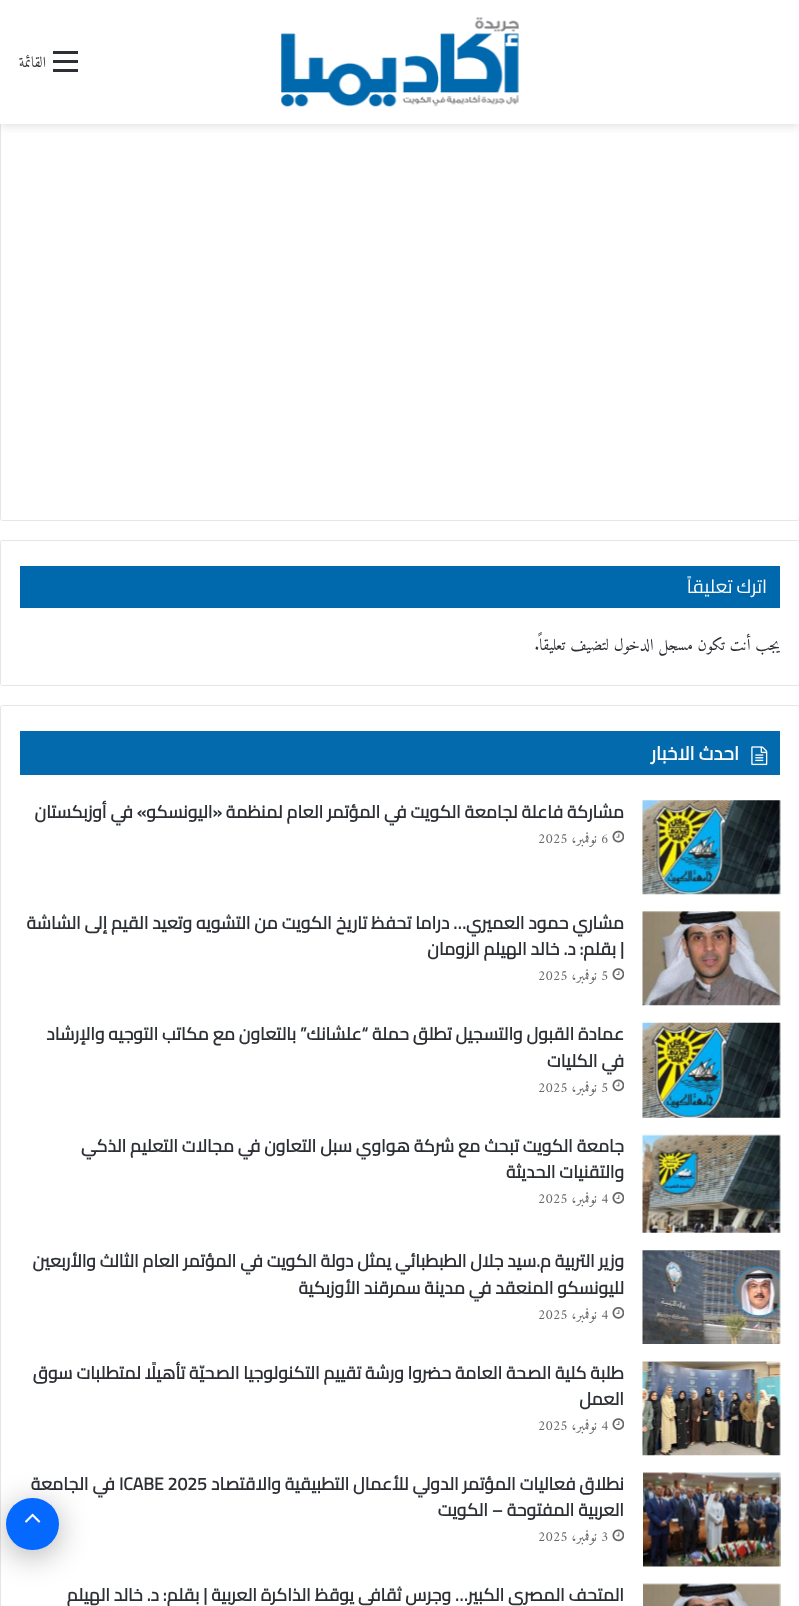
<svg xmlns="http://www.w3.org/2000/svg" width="799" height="1606">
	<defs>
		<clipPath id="clip1"><path d="M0 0H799V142H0ZM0 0H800V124H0Z" clip-rule="evenodd" /></clipPath>
	</defs>
	<rect width="100%" height="100%" fill="#FFFFFF" />
	<rect x="0.5" y="-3.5" width="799" height="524" rx="2" fill="none" stroke="#E6E6E6" />
	<g clip-path="url(#clip1)">
		<rect x="0" y="3" width="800" height="123" fill="#636363" fill-opacity="0.2" filter="blur(5px)" />
	</g>
	<rect x="0" y="0" width="799" height="124" fill="#FFFFFF" fill-opacity="0.95" />
	<image x="281" y="17" width="238" height="90" href="assets/img1.png" />
	<rect x="53" y="60" width="25" height="3" fill="#2C2F34" />
	<rect x="53" y="51" width="25" height="3" fill="#2C2F34" />
	<rect x="53" y="69" width="25" height="3" fill="#2C2F34" />
	<text x="46" y="67" font-family="Amiri" font-size="15" direction="rtl" fill="#2C2F34">القائمة</text>
	<rect x="0.5" y="540.5" width="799" height="145" rx="2" fill="none" stroke="#E6E6E6" />
	<rect x="20" y="566" width="760" height="42" fill="#0068AC" />
	<text x="767" y="593" font-family="Cairo" font-size="18.75" direction="rtl" fill="#FFFFFF">اترك تعليقاً</text>
	<g font-family="Amiri" font-size="16.25" direction="rtl" fill="#2C2F34">
		<text x="780" y="650">يجب أنت تكون</text>
		<text x="693" y="650">مسجل الدخول</text>
		<text x="609" y="650">لتضيف تعليقاً.</text>
	</g>
	<rect x="0.5" y="705.5" width="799" height="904" rx="2" fill="none" stroke="#E6E6E6" />
	<rect x="20" y="731" width="760" height="44" fill="#036AAD" />
	<image x="751" y="746" width="17" height="20" href="assets/img2.png" />
	<text x="739" y="760" font-family="Cairo" font-size="18.75" font-weight="700" direction="rtl" fill="#FFFFFF">احدث الاخبار</text>
	<image x="642" y="800" width="139" height="95" href="assets/img3.png" />
	<text x="624" y="818" font-family="Cairo" font-size="17.5" font-weight="700" direction="rtl" fill="#2C2F34">مشاركة فاعلة لجامعة الكويت في المؤتمر العام لمنظمة «اليونسكو» في أوزبكستان</text>
	<image x="612" y="830" width="12" height="13" href="assets/img4.png" />
	<text x="601" y="843" font-family="Amiri" font-size="14" fill="#666666">6</text>
	<text x="597" y="843" font-family="Amiri" font-size="14" direction="rtl" fill="#666666">نوفمبر،</text>
	<text x="538" y="843" font-family="Amiri" font-size="14" fill="#666666">2025</text>
	<image x="642" y="911" width="139" height="95" href="assets/img5.png" />
	<g font-family="Cairo" font-size="17.5" font-weight="700" direction="rtl" fill="#2C2F34">
		<text x="624" y="929">مشاري حمود العميري… دراما تحفظ تاريخ الكويت من التشويه وتعيد القيم إلى الشاشة</text>
		<text x="624" y="955">| بقلم: د. خالد الهيلم الزومان</text>
	</g>
	<image x="612" y="968" width="12" height="12" href="assets/img6.png" />
	<text x="601" y="980" font-family="Amiri" font-size="14" fill="#666666">5</text>
	<text x="597" y="980" font-family="Amiri" font-size="14" direction="rtl" fill="#666666">نوفمبر،</text>
	<text x="538" y="980" font-family="Amiri" font-size="14" fill="#666666">2025</text>
	<image x="642" y="1022" width="139" height="96" href="assets/img7.png" />
	<g font-family="Cairo" font-size="17.5" font-weight="700" direction="rtl" fill="#2C2F34">
		<text x="624" y="1040">عمادة القبول والتسجيل تطلق حملة “علشانك” بالتعاون مع مكاتب التوجيه والإرشاد</text>
		<text x="624" y="1067">في الكليات</text>
	</g>
	<image x="612" y="1079" width="12" height="13" href="assets/img8.png" />
	<text x="601" y="1092" font-family="Amiri" font-size="14" fill="#666666">5</text>
	<text x="597" y="1092" font-family="Amiri" font-size="14" direction="rtl" fill="#666666">نوفمبر،</text>
	<text x="538" y="1092" font-family="Amiri" font-size="14" fill="#666666">2025</text>
	<image x="642" y="1134" width="139" height="99" href="assets/img9.png" />
	<g font-family="Cairo" font-size="17.5" font-weight="700" direction="rtl" fill="#2C2F34">
		<text x="624" y="1152">جامعة الكويت تبحث مع شركة هواوي سبل التعاون في مجالات التعليم الذكي</text>
		<text x="624" y="1178">والتقنيات الحديثة</text>
	</g>
	<image x="612" y="1192" width="12" height="12" href="assets/img10.png" />
	<text x="601" y="1203" font-family="Amiri" font-size="14" fill="#666666">4</text>
	<text x="597" y="1203" font-family="Amiri" font-size="14" direction="rtl" fill="#666666">نوفمبر،</text>
	<text x="538" y="1203" font-family="Amiri" font-size="14" fill="#666666">2025</text>
	<image x="642" y="1250" width="139" height="94" href="assets/img11.png" />
	<g font-family="Cairo" font-size="17.5" font-weight="700" direction="rtl" fill="#2C2F34">
		<text x="624" y="1267">وزير التربية م.سيد جلال الطبطبائي يمثل دولة الكويت في المؤتمر العام الثالث والأربعين</text>
		<text x="624" y="1294">لليونسكو المنعقد في مدينة سمرقند الأوزبكية</text>
	</g>
	<image x="612" y="1307" width="12" height="12" href="assets/img10.png" />
	<text x="601" y="1319" font-family="Amiri" font-size="14" fill="#666666">4</text>
	<text x="597" y="1319" font-family="Amiri" font-size="14" direction="rtl" fill="#666666">نوفمبر،</text>
	<text x="538" y="1319" font-family="Amiri" font-size="14" fill="#666666">2025</text>
	<image x="642" y="1361" width="139" height="95" href="assets/img12.png" />
	<g font-family="Cairo" font-size="17.5" font-weight="700" direction="rtl" fill="#2C2F34">
		<text x="624" y="1379">طلبة كلية الصحة العامة حضروا ورشة تقييم التكنولوجيا الصحيّة تأهيلًا لمتطلبات سوق</text>
		<text x="624" y="1405">العمل</text>
	</g>
	<image x="612" y="1418" width="12" height="12" href="assets/img6.png" />
	<text x="601" y="1430" font-family="Amiri" font-size="14" fill="#666666">4</text>
	<text x="597" y="1430" font-family="Amiri" font-size="14" direction="rtl" fill="#666666">نوفمبر،</text>
	<text x="538" y="1430" font-family="Amiri" font-size="14" fill="#666666">2025</text>
	<image x="643" y="1472" width="138" height="95" href="assets/img13.png" />
	<text x="624" y="1490" font-family="Cairo" font-size="17.5" font-weight="700" direction="rtl" fill="#2C2F34">نطلاق فعاليات المؤتمر الدولي للأعمال التطبيقية والاقتصاد</text>
	<text x="119" y="1490" font-family="Cairo" font-size="17.5" font-weight="700" fill="#2C2F34">ICABE 2025</text>
	<g font-family="Cairo" font-size="17.5" font-weight="700" direction="rtl" fill="#2C2F34">
		<text x="115" y="1490">في الجامعة</text>
		<text x="624" y="1516">العربية المفتوحة – الكويت</text>
	</g>
	<image x="612" y="1529" width="12" height="13" href="assets/img8.png" />
	<text x="601" y="1541" font-family="Amiri" font-size="14" fill="#666666">3</text>
	<text x="597" y="1541" font-family="Amiri" font-size="14" direction="rtl" fill="#666666">نوفمبر،</text>
	<text x="538" y="1541" font-family="Amiri" font-size="14" fill="#666666">2025</text>
	<image x="643" y="1583" width="138" height="23" href="assets/img14.png" />
	<text x="624" y="1601" font-family="Cairo" font-size="17.5" font-weight="700" direction="rtl" fill="#2C2F34">المتحف المصري الكبير… وجرس ثقافي يوقظ الذاكرة العربية | بقلم: د. خالد الهيلم</text>
	<rect x="6" y="1504" width="53" height="52" rx="26" fill="#000000" fill-opacity="0.3" filter="blur(15.5px)" />
	<rect x="6" y="1498" width="53" height="52" rx="26" fill="#0669FF" />
	<image x="25" y="1513" width="16" height="10" href="assets/img15.png" />
</svg>
